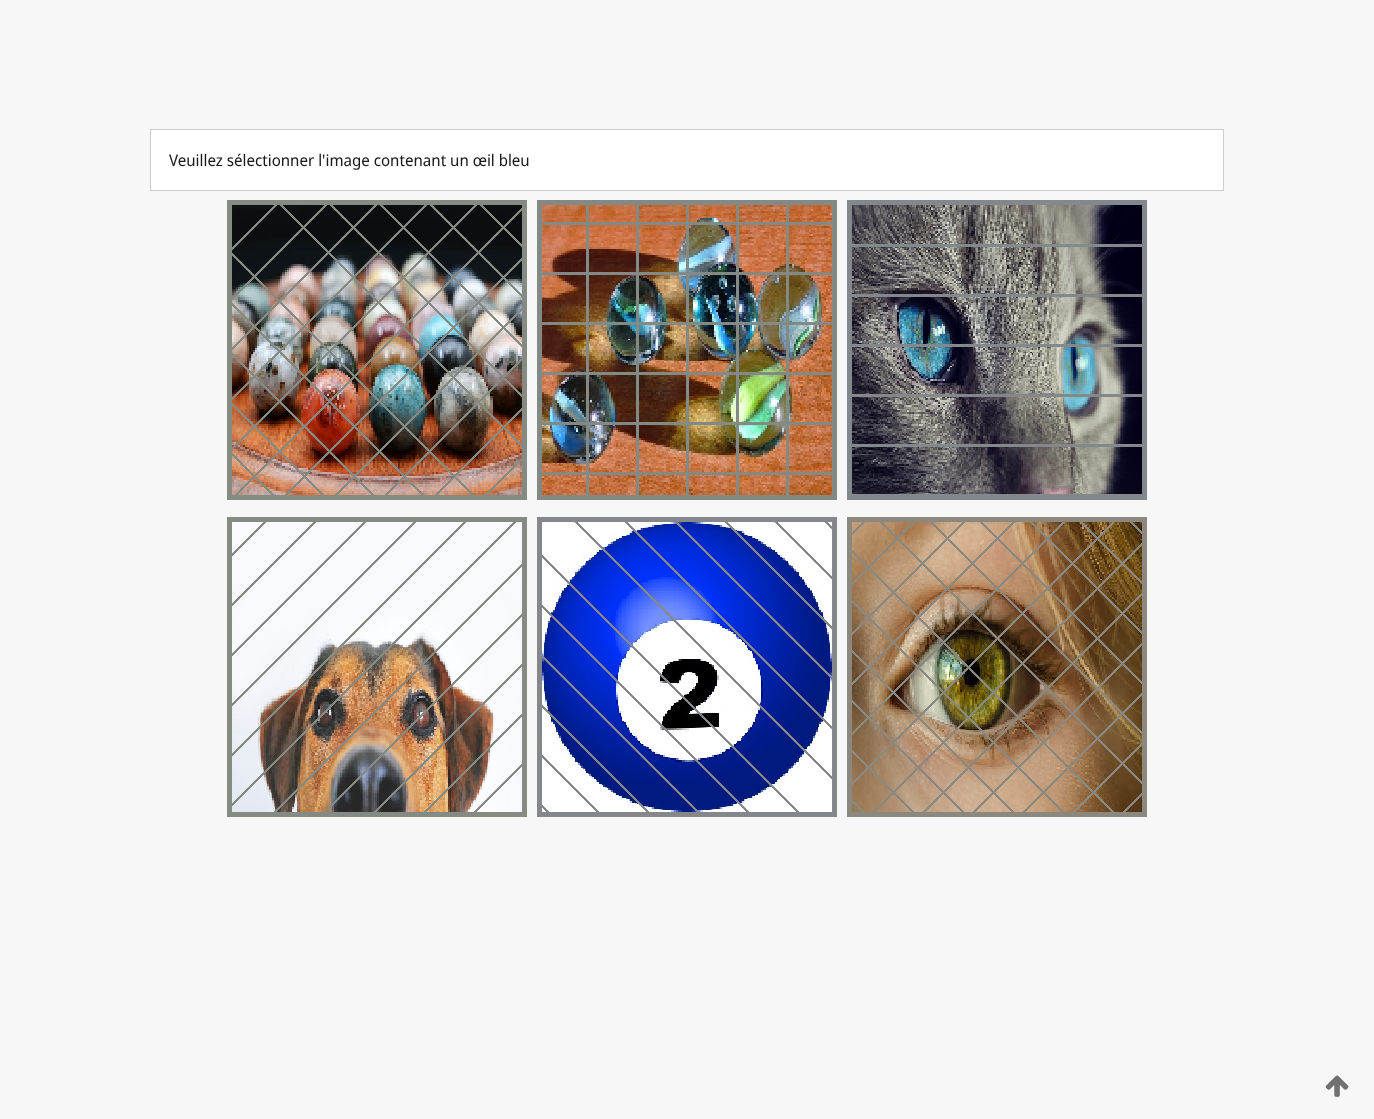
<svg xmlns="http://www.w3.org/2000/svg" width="1374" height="1119">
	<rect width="100%" height="100%" fill="#F7F7F7" />
	<rect x="150.5" y="129.5" width="1073" height="61" fill="#FFFFFF" stroke="#CCCCCC" />
	<text x="169" y="166" font-family="Noto Sans Display" font-size="16" fill="#1A1A1A">Veuillez sélectionner l'image contenant un œil bleu</text>
	<image x="227" y="200" width="300" height="300" href="assets/img1.png" />
	<image x="537" y="200" width="300" height="300" href="assets/img2.png" />
	<image x="847" y="200" width="300" height="300" href="assets/img3.png" />
	<image x="227" y="517" width="300" height="300" href="assets/img4.png" />
	<image x="537" y="517" width="300" height="300" href="assets/img5.png" />
	<image x="847" y="517" width="300" height="300" href="assets/img6.png" />
	<image x="1325" y="1075" width="24" height="22" href="assets/img7.png" />
</svg>
